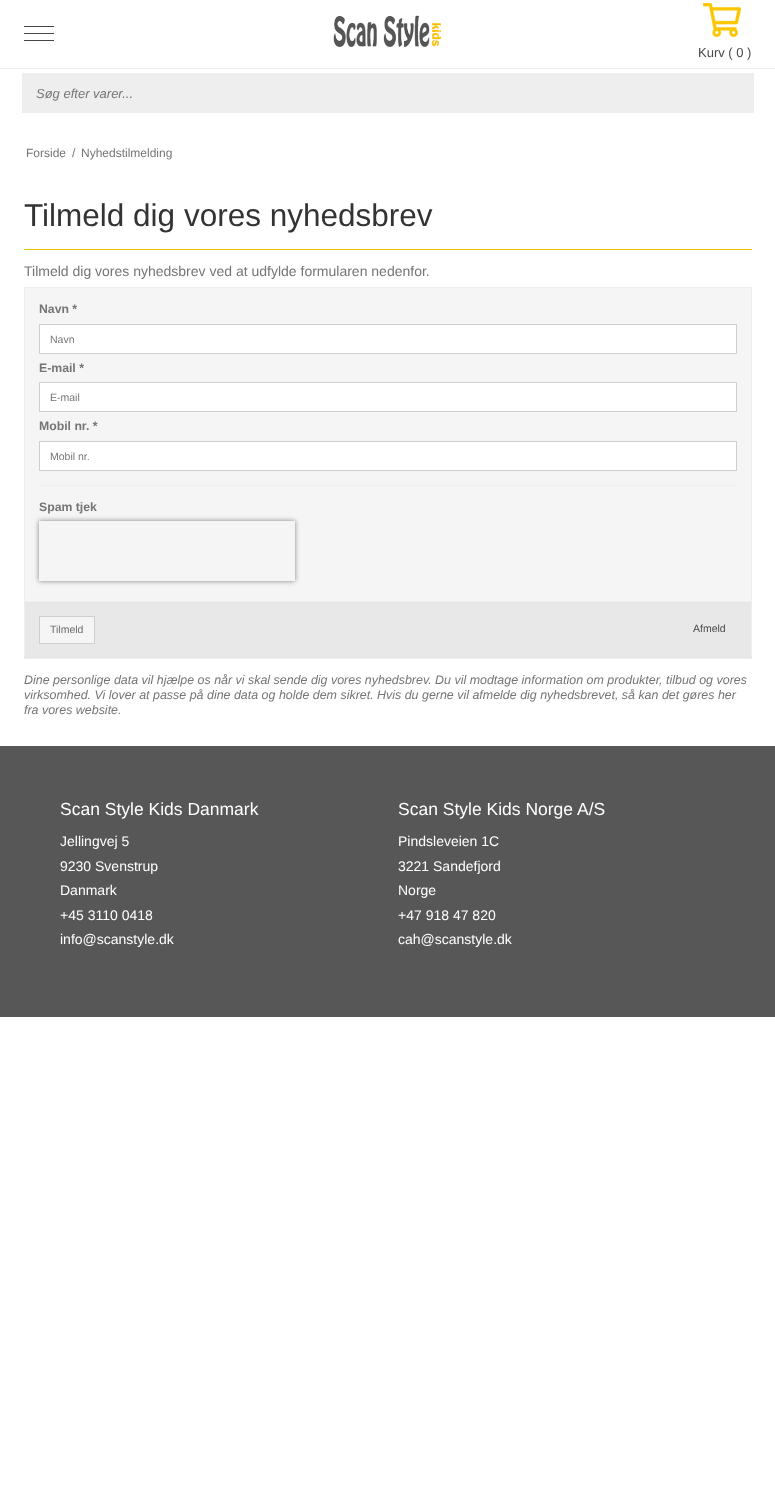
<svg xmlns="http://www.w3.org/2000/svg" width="775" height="1508">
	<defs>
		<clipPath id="clip1"><path d="M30 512H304V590H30ZM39 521H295V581H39Z" clip-rule="evenodd" /></clipPath>
	</defs>
	<rect width="100%" height="100%" fill="#FFFFFF" />
	<rect x="0" y="68" width="775" height="1" fill="#EEEEEE" />
	<rect x="24" y="33" width="30" height="1" fill="#464646" />
	<rect x="24" y="26" width="30" height="1" fill="#464646" />
	<rect x="24" y="40" width="30" height="1" fill="#464646" />
	<image x="333" y="15" width="109" height="33" href="assets/img1.png" />
	<image x="703" y="3" width="38" height="34" href="assets/img2.png" />
	<text x="698" y="57" font-family="Liberation Sans" font-size="13" fill="#4A4A4A">Kurv ( 0 )</text>
	<rect x="23" y="74" width="731" height="38" fill="#EEEEEE" />
	<rect x="22" y="73" width="732" height="1" fill="#EEEEEE" />
	<rect x="22" y="112" width="732" height="1" fill="#EEEEEE" />
	<rect x="22" y="73" width="1" height="40" fill="#EEEEEE" />
	<text x="36" y="98" font-family="Liberation Sans" font-size="13" font-style="italic" fill="#757575">Søg efter varer...</text>
	<g font-family="Liberation Sans" font-size="12" fill="#757575">
		<text x="26" y="157">Forside</text>
		<text x="72" y="157">/</text>
		<text x="81" y="157">Nyhedstilmelding</text>
	</g>
	<rect x="24" y="249" width="728" height="1" fill="#EDC500" />
	<text x="24" y="226" font-family="Liberation Sans" font-size="31.5" fill="#333333">Tilmeld dig vores nyhedsbrev</text>
	<text x="24" y="276" font-family="Liberation Sans" font-size="14" fill="#757575">Tilmeld dig vores nyhedsbrev ved at udfylde formularen nedenfor.</text>
	<rect x="25" y="288" width="726" height="313" fill="#F5F5F5" />
	<rect x="24.5" y="287.5" width="727" height="371" fill="none" stroke="#EEEEEE" />
	<text x="39" y="313" font-family="Liberation Sans" font-size="12.25" font-weight="700" fill="#757575">Navn *</text>
	<rect x="39.5" y="324.5" width="697" height="29" fill="#FFFFFF" stroke="#CFCFCF" />
	<text x="50" y="343" font-family="Liberation Sans" font-size="10.5" fill="#757575">Navn</text>
	<text x="39" y="372" font-family="Liberation Sans" font-size="12.25" font-weight="700" fill="#757575">E-mail *</text>
	<rect x="39.5" y="382.5" width="697" height="29" fill="#FFFFFF" stroke="#CFCFCF" />
	<text x="50" y="401" font-family="Liberation Sans" font-size="10.5" fill="#757575">E-mail</text>
	<text x="39" y="430" font-family="Liberation Sans" font-size="12.25" font-weight="700" fill="#757575">Mobil nr. *</text>
	<rect x="39.5" y="441.5" width="697" height="29" fill="#FFFFFF" stroke="#CFCFCF" />
	<text x="50" y="460" font-family="Liberation Sans" font-size="10.5" fill="#757575">Mobil nr.</text>
	<rect x="39" y="485" width="698" height="1" fill="#EEEEEE" />
	<g clip-path="url(#clip1)">
		<rect x="39" y="521" width="256" height="60" fill="#808080" filter="blur(2.5px)" />
	</g>
	<text x="39" y="511" font-family="Liberation Sans" font-size="12.25" font-weight="700" fill="#757575">Spam tjek</text>
	<rect x="25" y="602" width="726" height="56" fill="#E8E8E8" />
	<rect x="25" y="601" width="726" height="1" fill="#EEEEEE" />
	<rect x="39.5" y="616.5" width="55" height="27" fill="#F5F5F5" stroke="#CFCFCF" />
	<text x="50" y="633" font-family="Liberation Sans" font-size="10.5" fill="#6C6C6C">Tilmeld</text>
	<text x="693" y="632" font-family="Liberation Sans" font-size="10.5" fill="#4A4A4A">Afmeld</text>
	<g font-family="Liberation Sans" font-size="12.45" font-style="italic" fill="#757575">
		<text x="24" y="684">Dine personlige data vil hjælpe os når vi skal sende dig vores nyhedsbrev. Du vil modtage information om produkter, tilbud og vores</text>
		<text x="24" y="699">virksomhed. Vi lover at passe på dine data og holde dem sikret. Hvis du gerne vil afmelde dig nyhedsbrevet, så kan det gøres her</text>
		<text x="24" y="714">fra vores website.</text>
	</g>
	<rect x="0" y="746" width="775" height="271" fill="#575757" />
	<text x="60" y="815" font-family="Liberation Sans" font-size="17.5" fill="#FFFFFF">Scan Style Kids Danmark</text>
	<g font-family="Liberation Sans" font-size="14" fill="#FFFFFF">
		<text x="60" y="846">Jellingvej 5</text>
		<text x="60" y="871">9230 Svenstrup</text>
		<text x="60" y="895">Danmark</text>
		<text x="60" y="920">+45 3110 0418</text>
		<text x="60" y="944">info@scanstyle.dk</text>
	</g>
	<text x="398" y="815" font-family="Liberation Sans" font-size="17.5" fill="#FFFFFF">Scan Style Kids Norge A/S</text>
	<g font-family="Liberation Sans" font-size="14" fill="#FFFFFF">
		<text x="398" y="846">Pindsleveien 1C</text>
		<text x="398" y="871">3221 Sandefjord</text>
		<text x="398" y="895">Norge</text>
		<text x="398" y="920">+47 918 47 820</text>
		<text x="398" y="944">cah@scanstyle.dk</text>
	</g>
</svg>
